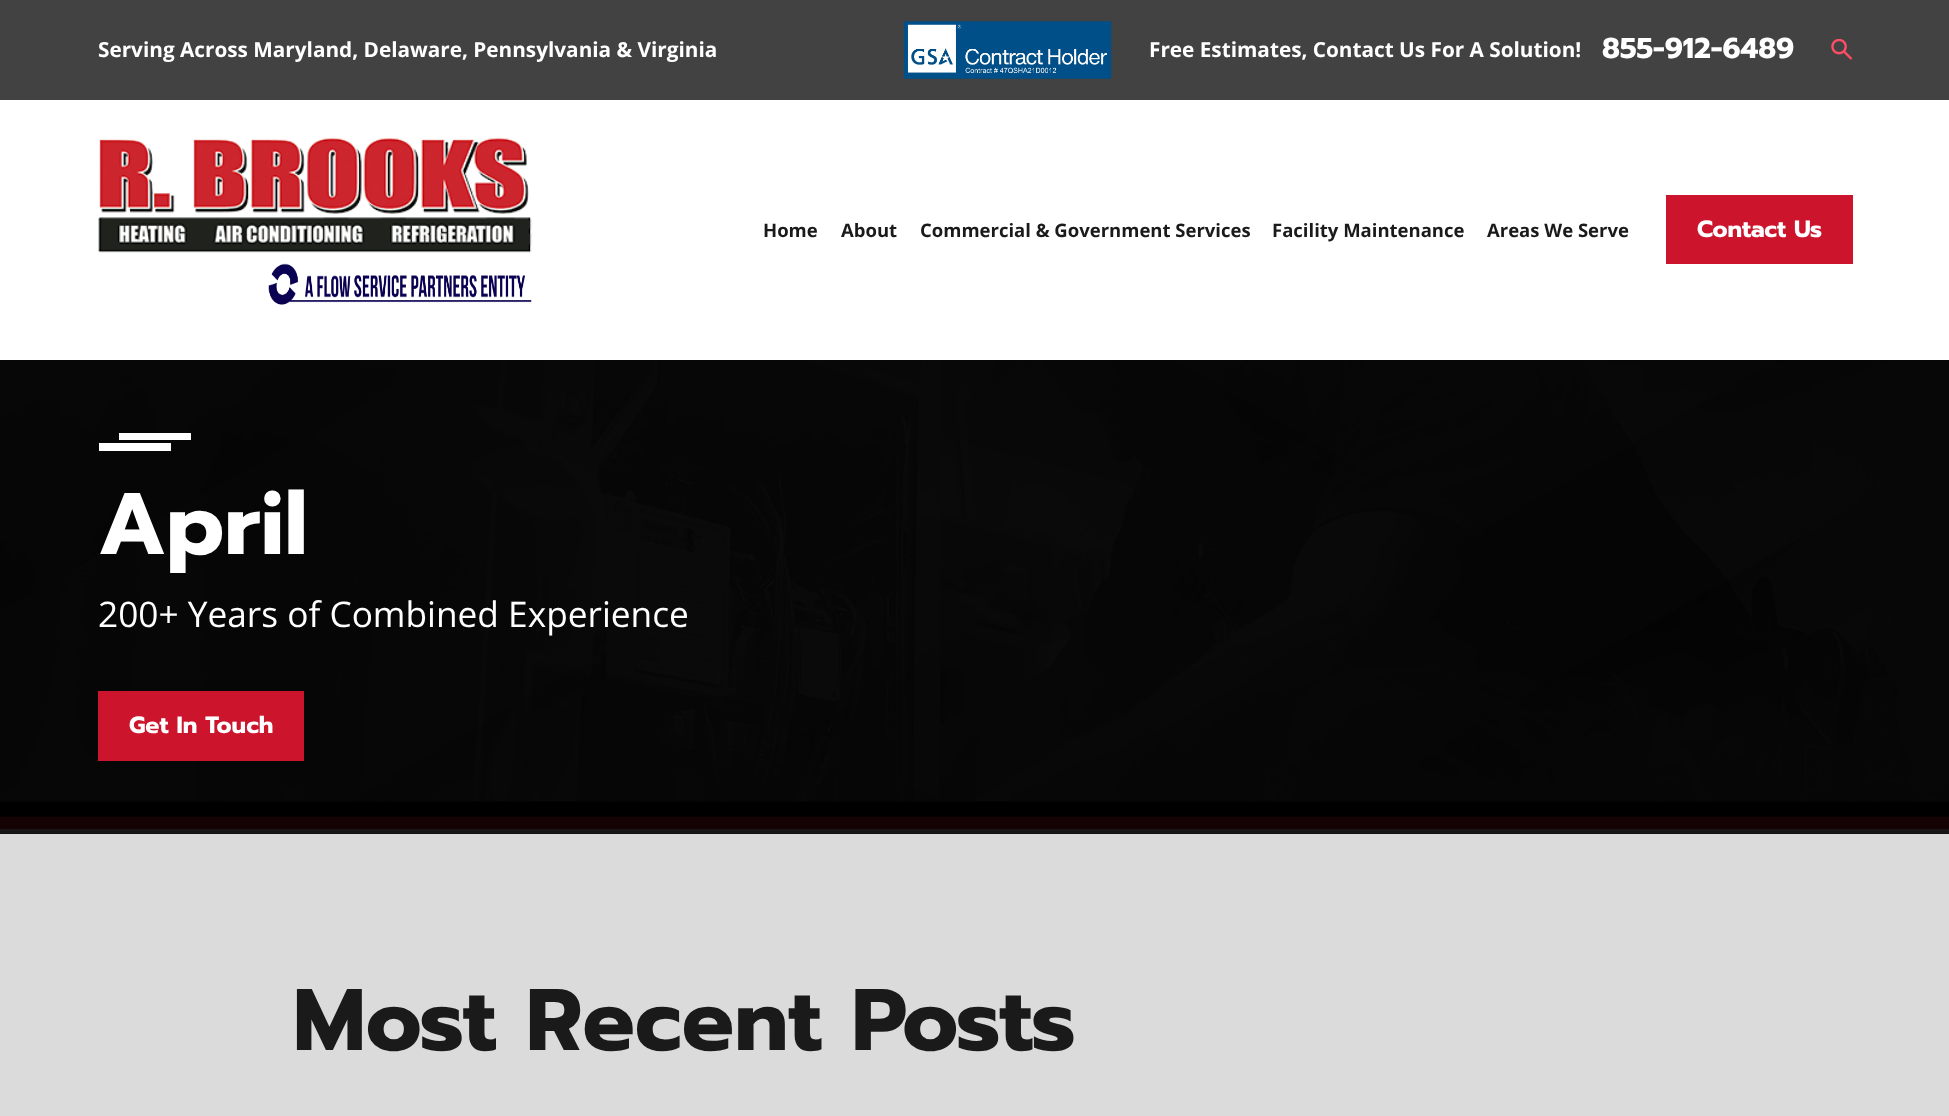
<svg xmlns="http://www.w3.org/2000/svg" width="1949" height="1116">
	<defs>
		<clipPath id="clip1"><rect x="99" y="433" width="92" height="18" /></clipPath>
	</defs>
	<rect width="100%" height="100%" fill="#FFFFFF" />
	<rect x="0" y="0" width="1949" height="100" fill="#424242" />
	<text x="98" y="57" font-family="Open Sans" font-size="20.75" font-weight="700" fill="#FFFFFF">Serving Across Maryland, Delaware, Pennsylvania &amp; Virginia</text>
	<image x="903" y="21" width="209" height="58" href="assets/img1.png" />
	<text x="1149" y="57" font-family="Open Sans" font-size="20.75" font-weight="700" fill="#FFFFFF">Free Estimates, Contact Us For A Solution!</text>
	<text x="1602" y="58" font-family="Prompt" font-size="28.75" font-weight="700" fill="#FFFFFF">855-912-6489</text>
	<image x="1831" y="39" width="21" height="21" href="assets/img2.png" />
	<image x="98" y="137" width="434" height="116" href="assets/img3.png" />
	<image x="268" y="263" width="264" height="42" href="assets/img4.png" />
	<g font-family="Open Sans" font-size="18.5" font-weight="700" fill="#1A1A1A">
		<text x="763" y="237">Home</text>
		<text x="841" y="237">About</text>
		<text x="920" y="237">Commercial &amp; Government Services</text>
		<text x="1272" y="237">Facility Maintenance</text>
		<text x="1487" y="237">Areas We Serve</text>
	</g>
	<rect x="1666" y="195" width="187" height="69" fill="#CC142D" />
	<text x="1697" y="237" font-family="Prompt" font-size="23.5" font-weight="700" fill="#FFFFFF">Contact Us</text>
	<rect x="0" y="360" width="1949" height="474" fill="#000000" />
	<image x="0" y="360" width="1949" height="474" href="assets/img5.png" />
	<g clip-path="url(#clip1)">
		<path d="M98 443H171V451H98ZM119 431V440H192V431Z" fill="#FFFFFF" />
	</g>
	<text x="98" y="554" font-family="Prompt" font-size="87.25" font-weight="700" fill="#FFFFFF">April</text>
	<text x="98" y="627" font-family="Open Sans" font-size="35.25" fill="#FFFFFF">200+ Years of Combined Experience</text>
	<rect x="98" y="691" width="206" height="70" fill="#CC142D" />
	<text x="129" y="733" font-family="Prompt" font-size="23.5" font-weight="700" fill="#FFFFFF">Get In Touch</text>
	<rect x="0" y="834" width="1949" height="282" fill="#DBDBDB" />
	<text x="293" y="1050" font-family="Prompt" font-size="87.25" font-weight="700" fill="#1A1A1A">Most Recent Posts</text>
</svg>
